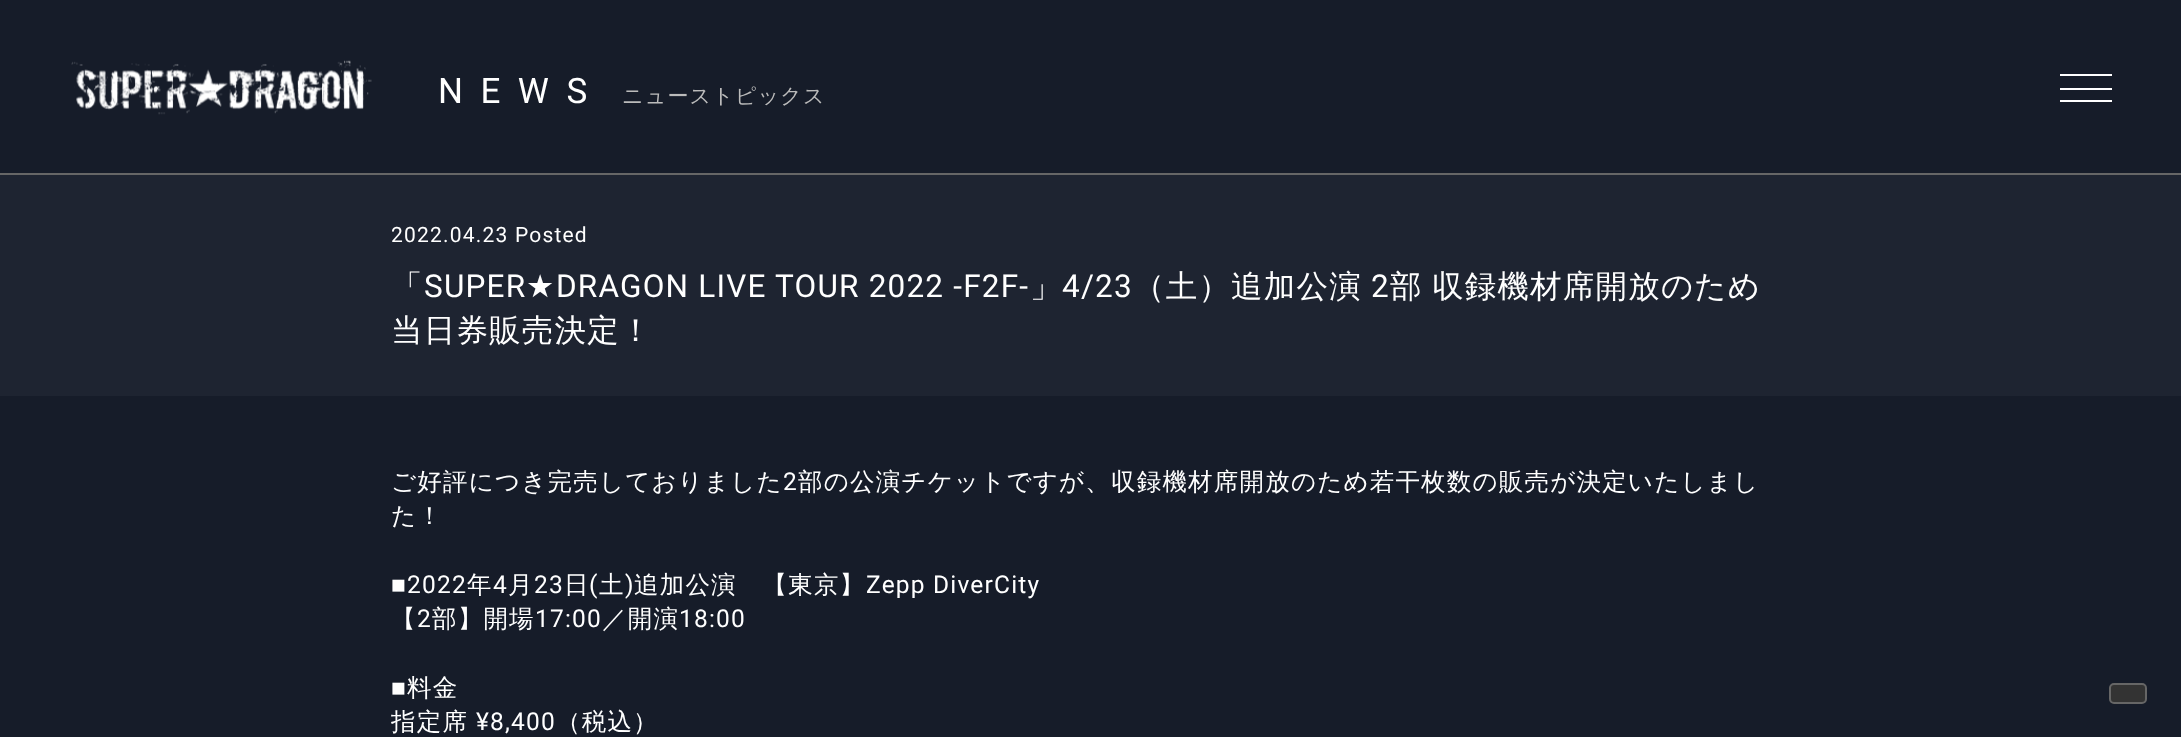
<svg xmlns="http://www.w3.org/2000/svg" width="2181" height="737">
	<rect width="100%" height="100%" fill="#161C29" />
	<rect x="0" y="173" width="2181" height="2" fill="#666666" />
	<image x="71" y="60" width="301" height="55" href="assets/img1.png" />
	<rect x="2060" y="74" width="52" height="2" fill="#FFFFFF" />
	<rect x="2060" y="88" width="52" height="2" fill="#FFFFFF" />
	<rect x="2060" y="100" width="52" height="2" fill="#FFFFFF" />
	<text x="438" y="103" font-family="Roboto" font-size="35" letter-spacing="17.5" fill="#FFFFFF">NEWS</text>
	<text x="622" y="103" font-family="WenQuanYi Zen Hei" font-size="21" font-weight="500" letter-spacing="1.2" fill="#BBBBBB">ニューストピックス</text>
	<rect x="0" y="175" width="2181" height="221" fill="#1E2431" />
	<text x="391" y="242" font-family="Roboto" font-size="21" letter-spacing="1.2" fill="#FFFFFF">2022.04.23 Posted</text>
	<text x="391" y="297" font-family="WenQuanYi Zen Hei" font-size="31.5" font-weight="500" letter-spacing="1.2" fill="#FFFFFF">「</text>
	<text x="424" y="297" font-family="Roboto" font-size="31.5" letter-spacing="1.2" fill="#FFFFFF">SUPER</text>
	<text x="526" y="297" font-family="DejaVu Sans" font-size="31.5" letter-spacing="1.2" fill="#FFFFFF">★</text>
	<text x="556" y="297" font-family="Roboto" font-size="31.5" letter-spacing="1.2" fill="#FFFFFF">DRAGON LIVE TOUR 2022 -F2F-</text>
	<text x="1030" y="297" font-family="WenQuanYi Zen Hei" font-size="31.5" font-weight="500" letter-spacing="1.2" fill="#FFFFFF">」</text>
	<text x="1062" y="297" font-family="Roboto" font-size="31.5" letter-spacing="1.2" fill="#FFFFFF">4/23</text>
	<text x="1133" y="297" font-family="WenQuanYi Zen Hei" font-size="31.5" font-weight="500" letter-spacing="1.2" fill="#FFFFFF">（土）追加公演</text>
	<text x="1371" y="297" font-family="Roboto" font-size="31.5" letter-spacing="1.2" fill="#FFFFFF">2</text>
	<g font-family="WenQuanYi Zen Hei" font-size="31.5" font-weight="500" letter-spacing="1.2" fill="#FFFFFF">
		<text x="1390" y="297">部</text>
		<text x="1432" y="297">収録機材席開放のため</text>
		<text x="391" y="341">当日券販売決定！</text>
	</g>
	<text x="391" y="490" font-family="WenQuanYi Zen Hei" font-size="24.5" font-weight="500" letter-spacing="1.2" fill="#FFFFFF">ご好評につき完売しておりました</text>
	<text x="783" y="490" font-family="Roboto" font-size="24.5" letter-spacing="1.2" fill="#FFFFFF">2</text>
	<g font-family="WenQuanYi Zen Hei" font-size="24.5" font-weight="500" letter-spacing="1.2" fill="#FFFFFF">
		<text x="798" y="490">部の公演チケットですが、収録機材席開放のため若干枚数の販売が決定いたしまし</text>
		<text x="391" y="524">た！</text>
	</g>
	<text x="391" y="593" font-family="Liberation Sans" font-size="24.5" letter-spacing="1.2" fill="#FFFFFF">■</text>
	<text x="407" y="593" font-family="Roboto" font-size="24.5" letter-spacing="1.2" fill="#FFFFFF">2022</text>
	<text x="467" y="593" font-family="WenQuanYi Zen Hei" font-size="24.5" font-weight="500" letter-spacing="1.2" fill="#FFFFFF">年</text>
	<text x="493" y="593" font-family="Roboto" font-size="24.5" letter-spacing="1.2" fill="#FFFFFF">4</text>
	<text x="508" y="593" font-family="WenQuanYi Zen Hei" font-size="24.5" font-weight="500" letter-spacing="1.2" fill="#FFFFFF">月</text>
	<text x="534" y="593" font-family="Roboto" font-size="24.5" letter-spacing="1.2" fill="#FFFFFF">23</text>
	<text x="564" y="593" font-family="WenQuanYi Zen Hei" font-size="24.5" font-weight="500" letter-spacing="1.2" fill="#FFFFFF">日</text>
	<text x="589" y="593" font-family="Roboto" font-size="24.5" letter-spacing="1.2" fill="#FFFFFF">(</text>
	<text x="599" y="593" font-family="WenQuanYi Zen Hei" font-size="24.5" font-weight="500" letter-spacing="1.2" fill="#FFFFFF">土</text>
	<text x="625" y="593" font-family="Roboto" font-size="24.5" letter-spacing="1.2" fill="#FFFFFF">)</text>
	<text x="634" y="593" font-family="WenQuanYi Zen Hei" font-size="24.5" font-weight="500" letter-spacing="1.2" fill="#FFFFFF">追加公演　【東京】</text>
	<text x="866" y="593" font-family="Roboto" font-size="24.5" letter-spacing="1.2" fill="#FFFFFF">Zepp DiverCity</text>
	<text x="391" y="627" font-family="WenQuanYi Zen Hei" font-size="24.5" font-weight="500" letter-spacing="1.2" fill="#FFFFFF">【</text>
	<text x="417" y="627" font-family="Roboto" font-size="24.5" letter-spacing="1.2" fill="#FFFFFF">2</text>
	<text x="432" y="627" font-family="WenQuanYi Zen Hei" font-size="24.5" font-weight="500" letter-spacing="1.2" fill="#FFFFFF">部】開場</text>
	<text x="535" y="627" font-family="Roboto" font-size="24.5" letter-spacing="1.2" fill="#FFFFFF">17:00</text>
	<text x="602" y="627" font-family="WenQuanYi Zen Hei" font-size="24.5" font-weight="500" letter-spacing="1.2" fill="#FFFFFF">／開演</text>
	<text x="679" y="627" font-family="Roboto" font-size="24.5" letter-spacing="1.2" fill="#FFFFFF">18:00</text>
	<text x="391" y="696" font-family="Liberation Sans" font-size="24.5" letter-spacing="1.2" fill="#FFFFFF">■</text>
	<g font-family="WenQuanYi Zen Hei" font-size="24.5" font-weight="500" letter-spacing="1.2" fill="#FFFFFF">
		<text x="407" y="696">料金</text>
		<text x="391" y="730">指定席</text>
	</g>
	<text x="476" y="730" font-family="Roboto" font-size="24.5" letter-spacing="1.2" fill="#FFFFFF">¥8,400</text>
	<text x="556" y="730" font-family="WenQuanYi Zen Hei" font-size="24.5" font-weight="500" letter-spacing="1.2" fill="#FFFFFF">（税込）</text>
	<rect x="2110" y="684" width="36" height="19" rx="4" fill="#333333" stroke="#666666" stroke-width="2" />
</svg>
